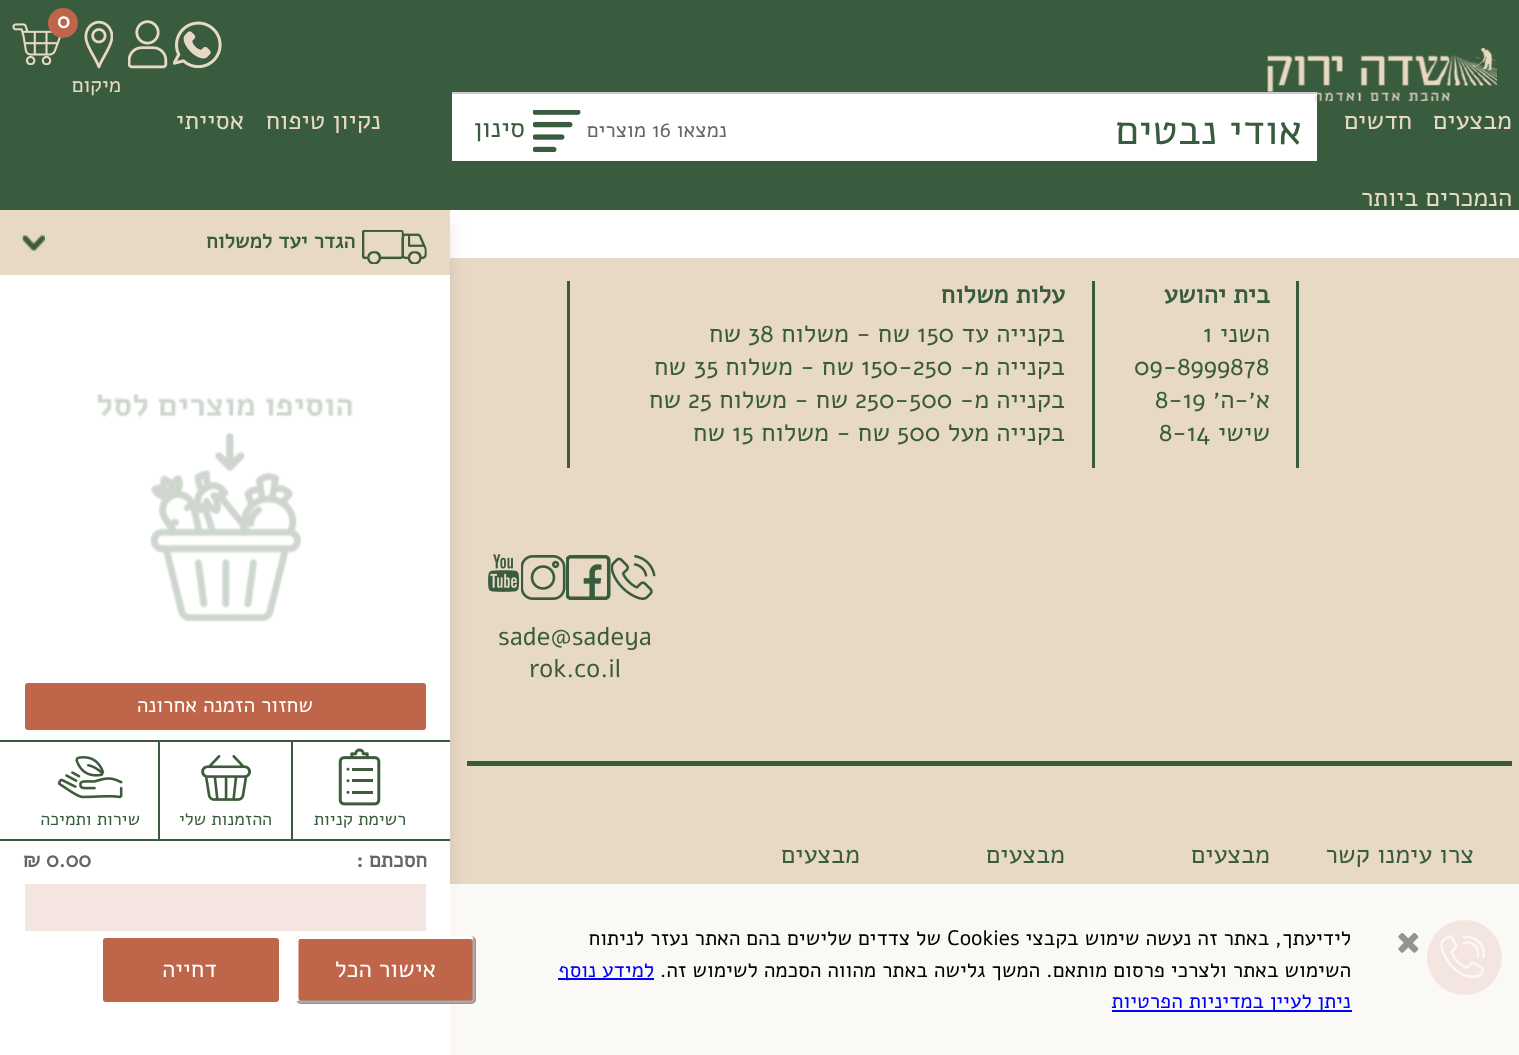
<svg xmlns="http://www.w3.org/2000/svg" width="1519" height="1055">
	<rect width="100%" height="100%" fill="#FFFFFF" />
	<rect x="450" y="258" width="1069" height="797" fill="#E8D9C5" />
	<rect x="467" y="761" width="1045" height="5" fill="#3A5C3E" />
	<rect x="0" y="222" width="450" height="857" fill="#000000" fill-opacity="0.1" filter="blur(8px)" />
	<rect x="0" y="0" width="1519" height="210" fill="#3A5C3E" />
	<image x="12" y="23" width="49" height="42" href="assets/img1.png" />
	<circle cx="63" cy="23" r="15" fill="#BE654A" />
	<text x="57" y="28" font-family="Alef" font-size="21" font-weight="700" fill="#FFFFFF">0</text>
	<image x="173" y="21" width="49" height="47" href="assets/img2.png" />
	<image x="128" y="20" width="40" height="49" href="assets/img3.png" />
	<image x="84" y="20" width="29" height="49" href="assets/img4.png" />
	<text x="121" y="92" font-family="Alef" font-size="21" direction="rtl" fill="#E8D9C5">מיקום</text>
	<g font-family="Alef" font-size="25.5" direction="rtl" fill="#E8D9C5">
		<text x="1512" y="129">מבצעים</text>
		<text x="1412" y="129">חדשים</text>
		<text x="381" y="129">נקיון טיפוח</text>
		<text x="244" y="129">אסייתי</text>
		<text x="1512" y="206">הנמכרים ביותר</text>
	</g>
	<rect x="452" y="94" width="865" height="67" fill="#FFFFFF" />
	<rect x="452" y="92" width="865" height="2" fill="#CCCCCC" />
	<image x="1267" y="48" width="230" height="53" href="assets/img5.png" />
	<circle cx="1464.5" cy="957.5" r="37.5" fill="#BE654A" />
	<image x="1440" y="935" width="45" height="43" href="assets/img6.png" />
	<text x="1302" y="144" font-family="Alef" font-size="42" direction="rtl" fill="#3A5C3E">אודי נבטים</text>
	<text x="727" y="137" font-family="Alef" font-size="21" direction="rtl" fill="#666666">נמצאו</text>
	<text x="652" y="137" font-family="Alef" font-size="21" fill="#666666">16</text>
	<text x="646" y="137" font-family="Alef" font-size="21" direction="rtl" fill="#666666">מוצרים</text>
	<image x="533" y="110" width="48" height="42" href="assets/img7.png" />
	<text x="525" y="137" font-family="Alef" font-size="27" direction="rtl" fill="#3A5C3E">סינון</text>
	<rect x="0" y="275" width="450" height="780" fill="#FFFFFF" />
	<rect x="0" y="210" width="450" height="65" fill="#E8D9C5" />
	<image x="22" y="235" width="23" height="16" href="assets/img8.png" />
	<image x="362" y="230" width="65" height="34" href="assets/img9.png" />
	<text x="355" y="248" font-family="Alef" font-size="21" font-weight="700" direction="rtl" fill="#3A5C3E">הגדר יעד למשלוח</text>
	<image x="97" y="394" width="256" height="228" href="assets/img10.png" />
	<rect x="0" y="740" width="450" height="2" fill="#3A5C3E" />
	<rect x="0" y="839" width="450" height="2" fill="#3A5C3E" />
	<rect x="24" y="682" width="403" height="49" rx="4" fill="#BE654A" stroke="#FFFFFF" stroke-width="2" />
	<text x="313" y="712" font-family="Alef" font-size="21" direction="rtl" fill="#FFFFFF">שחזור הזמנה אחרונה</text>
	<image x="338" y="748" width="43" height="58" href="assets/img11.png" />
	<text x="406" y="825" font-family="Alef" font-size="18" direction="rtl" fill="#3A5C3E">רשימת קניות</text>
	<rect x="291" y="741" width="2" height="98" fill="#3A5C3E" />
	<rect x="158" y="741" width="2" height="98" fill="#3A5C3E" />
	<image x="201" y="755" width="50" height="46" href="assets/img12.png" />
	<text x="272" y="825" font-family="Alef" font-size="18" direction="rtl" fill="#3A5C3E">ההזמנות שלי</text>
	<image x="57" y="756" width="66" height="43" href="assets/img13.png" />
	<text x="140" y="825" font-family="Alef" font-size="18" direction="rtl" fill="#3A5C3E">שירות ותמיכה</text>
	<text x="427" y="867" font-family="Alef" font-size="21" font-weight="700" direction="rtl" fill="#666666">חסכתם :</text>
	<g font-family="Alef" font-size="21" font-weight="700" fill="#666666">
		<text x="46" y="867">0.00</text>
		<text x="23" y="867">₪</text>
	</g>
	<rect x="25" y="884" width="401" height="47" fill="#BE654A" />
	<rect x="1296" y="281" width="3" height="187" fill="#3A5C3E" />
	<text x="1270" y="303" font-family="Alef" font-size="25.5" font-weight="700" direction="rtl" fill="#3A5C3E">בית יהושע</text>
	<rect x="1092" y="281" width="3" height="187" fill="#3A5C3E" />
	<text x="1270" y="342" font-family="Alef" font-size="25.5" direction="rtl" fill="#3A5C3E">השני</text>
	<g font-family="Alef" font-size="25.5" fill="#3A5C3E">
		<text x="1203" y="342">1</text>
		<text x="1134" y="375">09-8999878</text>
	</g>
	<text x="1270" y="408" font-family="Alef" font-size="25.5" direction="rtl" fill="#3A5C3E">א׳-ה׳</text>
	<text x="1155" y="408" font-family="Alef" font-size="25.5" fill="#3A5C3E">8-19</text>
	<text x="1270" y="441" font-family="Alef" font-size="25.5" direction="rtl" fill="#3A5C3E">שישי</text>
	<text x="1159" y="441" font-family="Alef" font-size="25.5" fill="#3A5C3E">8-14</text>
	<text x="1065" y="303" font-family="Alef" font-size="25.5" font-weight="700" direction="rtl" fill="#3A5C3E">עלות משלוח</text>
	<rect x="567" y="281" width="3" height="187" fill="#3A5C3E" />
	<text x="1065" y="342" font-family="Alef" font-size="25.5" direction="rtl" fill="#3A5C3E">בקנייה עד</text>
	<text x="917" y="342" font-family="Alef" font-size="25.5" fill="#3A5C3E">150</text>
	<text x="910" y="342" font-family="Alef" font-size="25.5" direction="rtl" fill="#3A5C3E">שח - משלוח</text>
	<text x="748" y="342" font-family="Alef" font-size="25.5" fill="#3A5C3E">38</text>
	<g font-family="Alef" font-size="25.5" direction="rtl" fill="#3A5C3E">
		<text x="741" y="342">שח</text>
		<text x="1065" y="375">בקנייה מ-</text>
	</g>
	<text x="861" y="375" font-family="Alef" font-size="25.5" fill="#3A5C3E">150-250</text>
	<text x="854" y="375" font-family="Alef" font-size="25.5" direction="rtl" fill="#3A5C3E">שח - משלוח</text>
	<text x="694" y="375" font-family="Alef" font-size="25.5" fill="#3A5C3E">35</text>
	<g font-family="Alef" font-size="25.5" direction="rtl" fill="#3A5C3E">
		<text x="686" y="375">שח</text>
		<text x="1065" y="408">בקנייה מ-</text>
	</g>
	<text x="855" y="408" font-family="Alef" font-size="25.5" fill="#3A5C3E">250-500</text>
	<text x="848" y="408" font-family="Alef" font-size="25.5" direction="rtl" fill="#3A5C3E">שח - משלוח</text>
	<text x="688" y="408" font-family="Alef" font-size="25.5" fill="#3A5C3E">25</text>
	<g font-family="Alef" font-size="25.5" direction="rtl" fill="#3A5C3E">
		<text x="681" y="408">שח</text>
		<text x="1065" y="441">בקנייה מעל</text>
	</g>
	<text x="897" y="441" font-family="Alef" font-size="25.5" fill="#3A5C3E">500</text>
	<text x="890" y="441" font-family="Alef" font-size="25.5" direction="rtl" fill="#3A5C3E">שח - משלוח</text>
	<text x="732" y="441" font-family="Alef" font-size="25.5" fill="#3A5C3E">15</text>
	<text x="725" y="441" font-family="Alef" font-size="25.5" direction="rtl" fill="#3A5C3E">שח</text>
	<image x="611" y="555" width="45" height="45" href="assets/img14.png" />
	<image x="566" y="555" width="45" height="45" href="assets/img15.png" />
	<image x="521" y="555" width="45" height="45" href="assets/img16.png" />
	<image x="488" y="554" width="32" height="38" href="assets/img17.png" />
	<g font-family="Alef" font-size="25.5" fill="#3A5C3E">
		<text x="498" y="645">sade@sadeya</text>
		<text x="529" y="677">rok.co.il</text>
	</g>
	<g font-family="Alef" font-size="25.5" direction="rtl" fill="#3A5C3E">
		<text x="1474" y="863">צרו עימנו קשר</text>
		<text x="1270" y="863">מבצעים</text>
		<text x="1065" y="863">מבצעים</text>
		<text x="860" y="863">מבצעים</text>
	</g>
	<rect x="25" y="884" width="1494" height="171" fill="#FFFFFF" fill-opacity="0.83" />
	<image x="1398" y="933" width="21" height="20" href="assets/img18.png" />
	<text x="1351" y="945" font-family="Alef" font-size="21" direction="rtl" fill="#000000">לידיעתך, באתר זה נעשה שימוש בקבצי</text>
	<text x="947" y="945" font-family="Alef" font-size="21" fill="#000000">Cookies</text>
	<g font-family="Alef" font-size="21" direction="rtl" fill="#000000">
		<text x="941" y="945">של צדדים שלישים בהם האתר נעזר לניתוח</text>
		<text x="1351" y="977">השימוש באתר ולצרכי פרסום מותאם. המשך גלישה באתר מהווה הסכמה לשימוש זה.</text>
	</g>
	<rect x="558" y="978" width="96" height="2" fill="#0000FF" />
	<text x="654" y="977" font-family="Alef" font-size="21" direction="rtl" fill="#0000FF">למידע נוסף</text>
	<rect x="1112" y="1010" width="240" height="2" fill="#0000FF" />
	<text x="1351" y="1008" font-family="Alef" font-size="21" direction="rtl" fill="#0000FF">ניתן לעיין במדיניות הפרטיות</text>
	<rect x="296" y="936" width="180" height="68" rx="5" fill="#BE654A" />
	<path d="M473 938.5L474 940.5V999L473 1001L471 1002H300L298 1001" fill="none" stroke="#AAAAAA" stroke-width="3" />
	<path d="M298 1001L297 999V940.5L298 938.5L300 937.5H471L473 938.5" fill="none" stroke="#FFFFFF" stroke-width="3" />
	<text x="436" y="977" font-family="Alef" font-size="24" direction="rtl" fill="#FFFFFF">אישור הכל</text>
	<rect x="102" y="937" width="178" height="66" rx="4" fill="#BE654A" stroke="#FFFFFF" stroke-width="2" />
	<text x="217" y="977" font-family="Alef" font-size="24" direction="rtl" fill="#FFFFFF">דחייה</text>
</svg>
